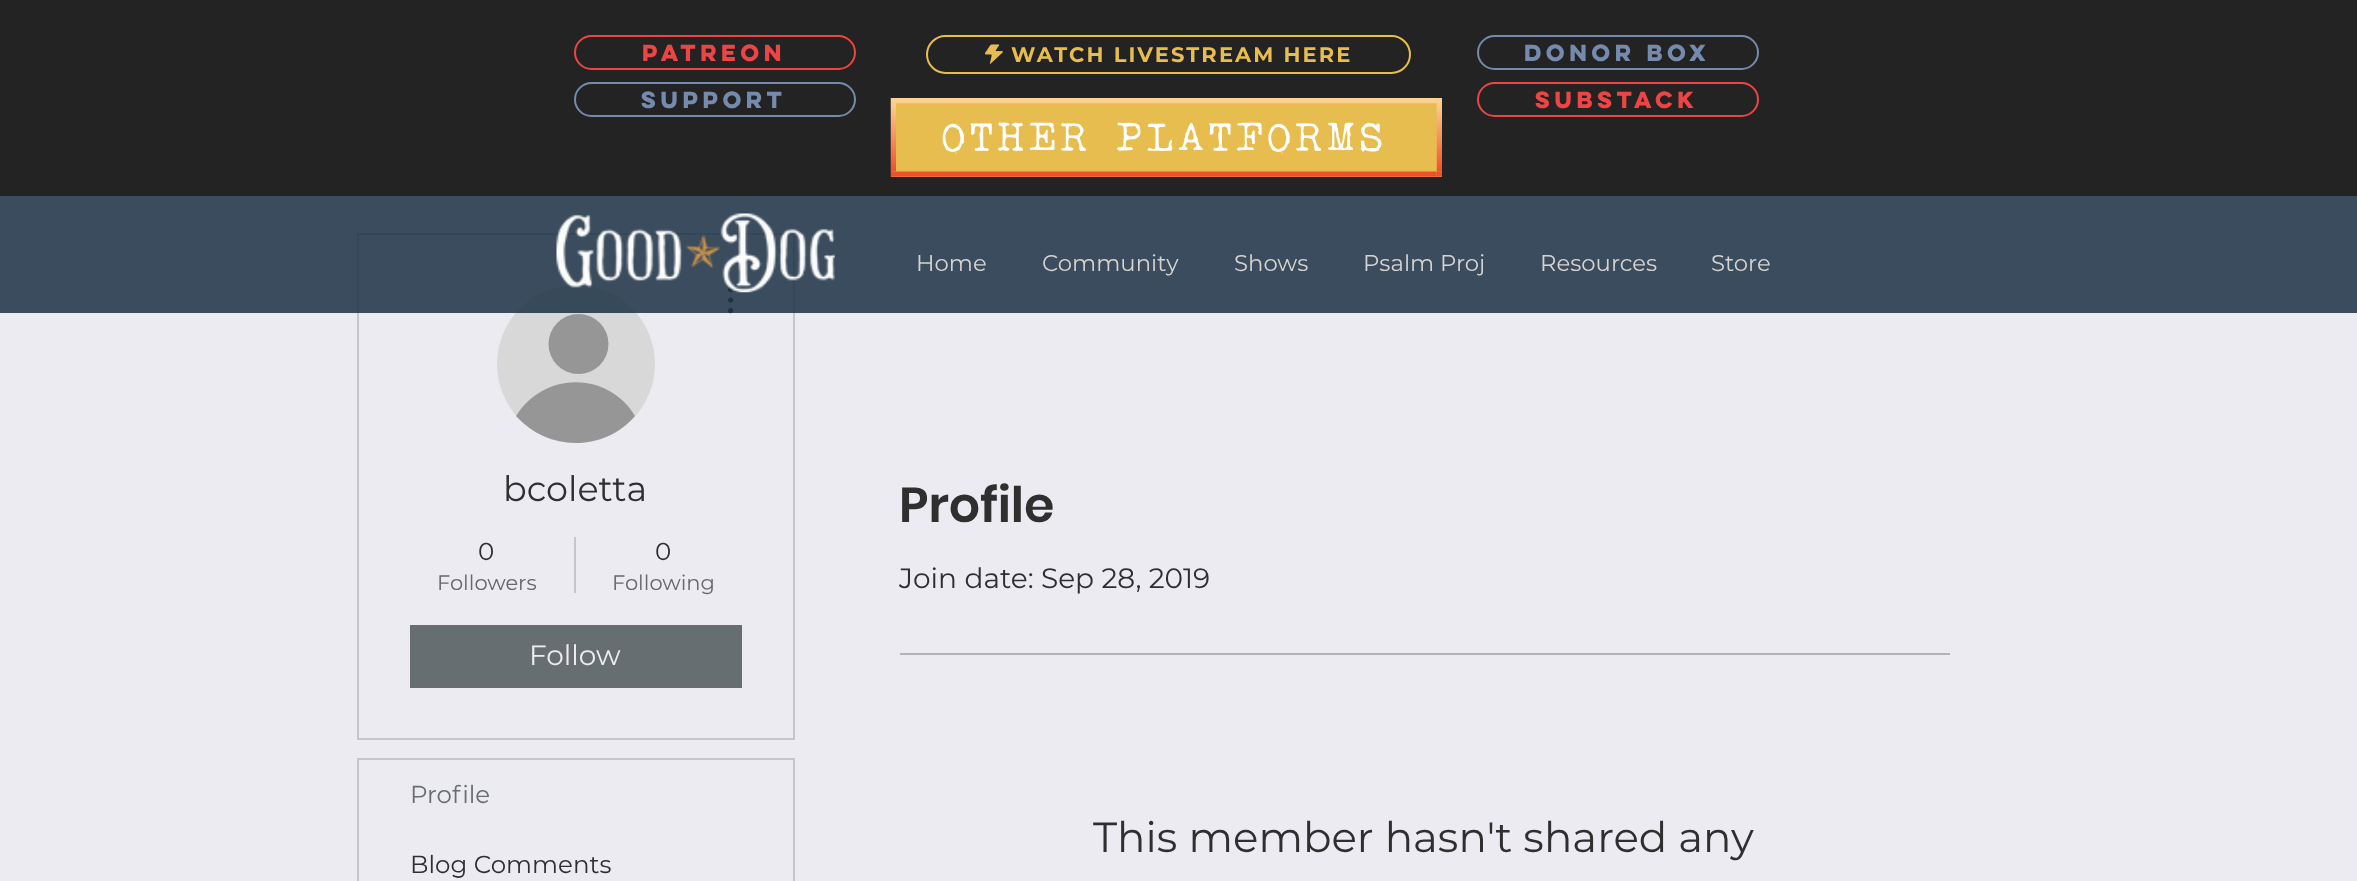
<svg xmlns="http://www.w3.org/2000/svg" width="2357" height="881">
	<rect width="100%" height="100%" fill="#EDEBF2" />
	<rect x="0" y="0" width="2357" height="196" fill="#242323" />
	<rect x="575" y="36" width="280" height="33" rx="16.5" fill="none" stroke="#ED4545" stroke-width="2" />
	<text x="642" y="61" font-family="'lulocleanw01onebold'" font-size="21" font-weight="700" fill="#ED4545">PATREON</text>
	<rect x="927" y="36" width="483" height="37" rx="18.5" fill="none" stroke="#E8BD4F" stroke-width="2" />
	<image x="985" y="44" width="18" height="20" href="assets/img1.png" />
	<text x="1011" y="62" font-family="Montserrat" font-size="21" font-weight="700" letter-spacing="2.1" fill="#E8BD4F">WATCH LIVESTREAM HERE</text>
	<rect x="1478" y="36" width="280" height="33" rx="16.5" fill="none" stroke="#748BAE" stroke-width="2" />
	<text x="1524" y="61" font-family="'lulocleanw01onebold'" font-size="21" font-weight="700" fill="#748BAE">DONOR BOX</text>
	<rect x="575" y="83" width="280" height="33" rx="16.5" fill="none" stroke="#748BAE" stroke-width="2" />
	<text x="641" y="108" font-family="'lulocleanw01onebold'" font-size="21" font-weight="700" fill="#748BAE">SUPPORT</text>
	<rect x="1478" y="83" width="280" height="33" rx="16.5" fill="none" stroke="#ED4545" stroke-width="2" />
	<text x="1535" y="108" font-family="'lulocleanw01onebold'" font-size="21" font-weight="700" fill="#ED4545">SUBSTACK</text>
	<rect x="891" y="98" width="551" height="79" fill="#E8BD4F" />
	<image x="890" y="98" width="552" height="79" href="assets/img2.png" />
	<text x="942" y="150" font-family="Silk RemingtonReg" font-size="36.75" letter-spacing="5.5" fill="#FFFFFF">OTHER PLATFORMS</text>
	<rect x="358" y="234" width="436" height="505" fill="none" stroke="#C7C5CB" stroke-width="2" />
	<circle cx="576" cy="364" r="79" fill="#D8D8D8" />
	<image x="728" y="287" width="6" height="27" href="assets/img4.png" />
	<rect x="0" y="196" width="2357" height="117" fill="#1C3245" fill-opacity="0.86" />
	<image x="556" y="213" width="279" height="80" href="assets/img3.png" />
	<g font-family="Montserrat" font-size="22.75" fill="#D7D3D2">
		<text x="916" y="271">Home</text>
		<text x="1042" y="271">Community</text>
		<text x="1234" y="271">Shows</text>
		<text x="1363" y="271">Psalm Proj</text>
		<text x="1540" y="271">Resources</text>
		<text x="1711" y="271">Store</text>
	</g>
	<circle cx="578.5" cy="344" r="30" fill="#969696" />
	<path d="M635 416C604 452 548 452 516 416C544 371 608 371 635 416Z" fill="#969696" />
	<text x="503" y="501" font-family="Montserrat" font-size="35" fill="#2F2F30">bcoletta</text>
	<text x="478" y="560" font-family="Montserrat" font-size="24.5" fill="#2F2F30">0</text>
	<text x="437" y="590" font-family="Montserrat" font-size="21" fill="#68676A">Followers</text>
	<rect x="574" y="537" width="2" height="56" fill="#C7C5CB" />
	<text x="655" y="560" font-family="Montserrat" font-size="24.5" fill="#2F2F30">0</text>
	<text x="612" y="590" font-family="Montserrat" font-size="21" fill="#68676A">Following</text>
	<rect x="410" y="625" width="332" height="63" fill="#676E71" />
	<text x="529" y="665" font-family="Montserrat" font-size="28" fill="#EDEBF2">Follow</text>
	<rect x="358" y="759" width="436" height="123" fill="none" stroke="#C7C5CB" stroke-width="2" />
	<text x="410" y="803" font-family="Montserrat" font-size="24.5" fill="#676E71">Profile</text>
	<text x="410" y="873" font-family="Montserrat" font-size="24.5" fill="#2F2F30">Blog Comments</text>
	<text x="899" y="522" font-family="Poppins" font-size="49" font-weight="600" fill="#2F2F30">Profile</text>
	<text x="899" y="588" font-family="Montserrat" font-size="28" fill="#2F2F30">Join date: Sep 28, 2019</text>
	<rect x="900" y="653" width="1050" height="2" fill="#B4B3B8" />
	<text x="1093" y="852" font-family="Montserrat" font-size="42" fill="#2F2F30">This member hasn't shared any</text>
</svg>
